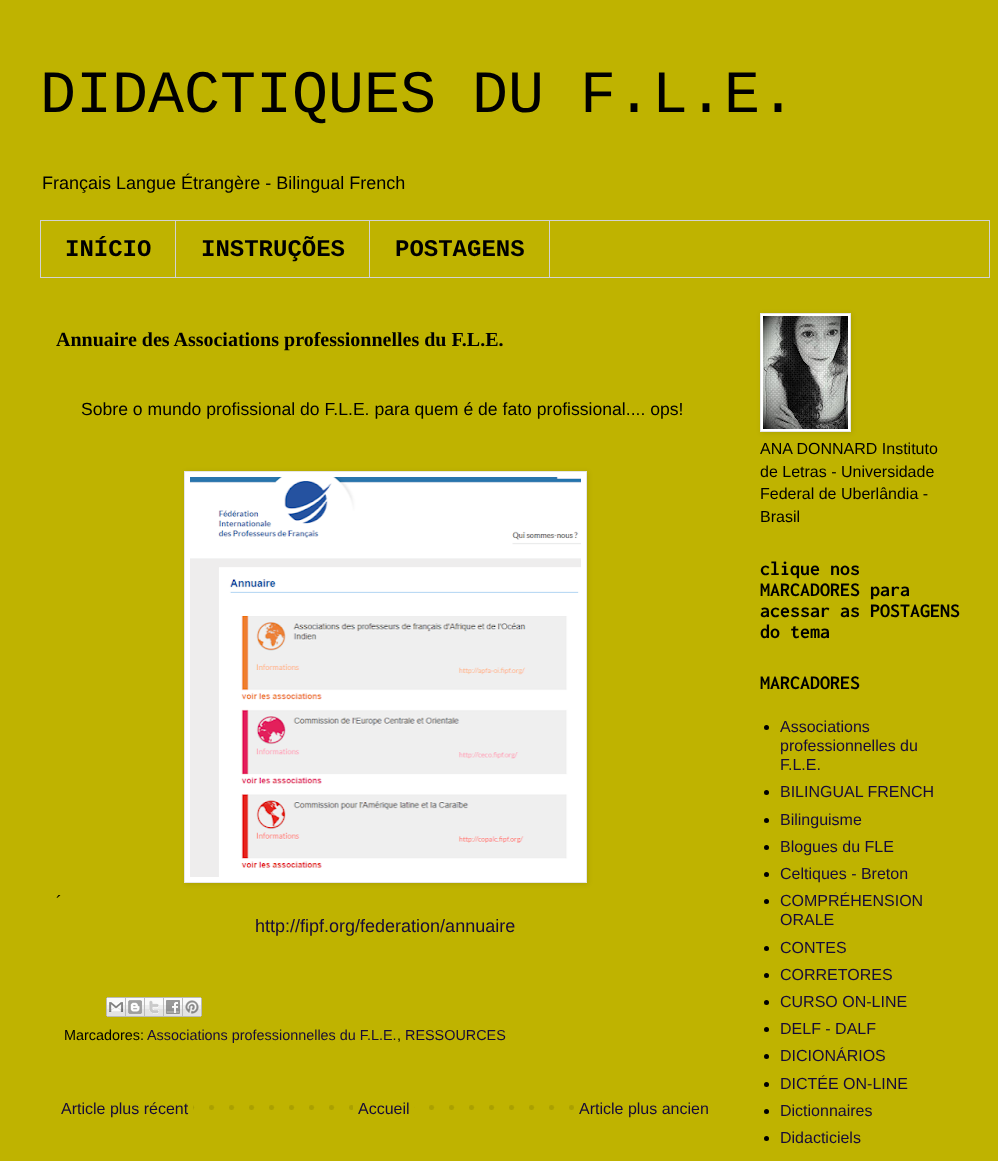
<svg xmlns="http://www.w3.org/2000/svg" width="998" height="1161">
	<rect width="100%" height="100%" fill="#BFB300" />
	<text x="40" y="112" font-family="Liberation Mono" font-size="60" fill="#000000">DIDACTIQUES DU F.L.E.</text>
	<text x="42" y="189" font-family="Liberation Sans" font-size="18" fill="#000000">Français Langue Étrangère - Bilingual French</text>
	<rect x="40.5" y="220.5" width="949" height="57" fill="none" stroke="#D3D3D3" />
	<rect x="175" y="221" width="1" height="56" fill="#D3D3D3" />
	<text x="65" y="256" font-family="Liberation Mono" font-size="24" font-weight="700" fill="#000000">INÍCIO</text>
	<rect x="369" y="221" width="1" height="56" fill="#D3D3D3" />
	<text x="201" y="256" font-family="Liberation Mono" font-size="24" font-weight="700" fill="#000000">INSTRUÇÕES</text>
	<rect x="549" y="221" width="1" height="56" fill="#D3D3D3" />
	<text x="395" y="256" font-family="Liberation Mono" font-size="24" font-weight="700" fill="#000000">POSTAGENS</text>
	<text x="56" y="346" font-family="Liberation Serif" font-size="20" font-weight="700" fill="#000000">Annuaire des Associations professionnelles du F.L.E.</text>
	<text x="81" y="415" font-family="Liberation Sans" font-size="17.6" fill="#000000">Sobre o mundo profissional do F.L.E. para quem é de fato profissional.... ops!</text>
	<rect x="185" y="472" width="403" height="412" fill="#000000" fill-opacity="0.1" filter="blur(2.5px)" />
	<rect x="184.5" y="471.5" width="402" height="411" fill="#FFFFFF" stroke="#E6E6E6" />
	<image x="190" y="477" width="391" height="400" href="assets/img1.png" />
	<text x="56" y="908" font-family="Liberation Sans" font-size="17.6" fill="#000000">´</text>
	<text x="255" y="932" font-family="Liberation Sans" font-size="18" fill="#160A38">http://fipf.org/federation/annuaire</text>
	<image x="106" y="997" width="20" height="20" href="assets/img2.png" />
	<image x="126" y="997" width="19" height="20" href="assets/img3.png" />
	<image x="145" y="997" width="19" height="20" href="assets/img4.png" />
	<image x="164" y="997" width="19" height="20" href="assets/img5.png" />
	<image x="183" y="997" width="19" height="20" href="assets/img6.png" />
	<text x="64" y="1040" font-family="Liberation Sans" font-size="14.4" fill="#000000">Marcadores:</text>
	<text x="147" y="1040" font-family="Liberation Sans" font-size="14.4" fill="#160A38">Associations professionnelles du F.L.E.</text>
	<text x="397" y="1040" font-family="Liberation Sans" font-size="14.4" fill="#000000">,</text>
	<text x="405" y="1040" font-family="Liberation Sans" font-size="14.4" fill="#160A38">RESSOURCES</text>
	<image x="193" y="1105" width="381" height="5" href="assets/img7.png" />
	<text x="61" y="1114" font-family="Liberation Sans" font-size="16" fill="#160A38">Article plus récent</text>
	<rect x="353" y="1105" width="61" height="5" fill="#BFB300" />
	<g font-family="Liberation Sans" font-size="16" fill="#160A38">
		<text x="358" y="1114">Accueil</text>
		<text x="579" y="1114">Article plus ancien</text>
	</g>
	<rect x="761" y="314" width="91" height="119" fill="#000000" fill-opacity="0.1" filter="blur(2.5px)" />
	<rect x="760.5" y="313.5" width="90" height="118" fill="#FFFFFF" stroke="#E6E6E6" />
	<image x="763" y="316" width="85" height="113" href="assets/img8.png" />
	<g font-family="Liberation Sans" font-size="16" fill="#000000">
		<text x="760" y="454">ANA DONNARD Instituto</text>
		<text x="760" y="477">de Letras - Universidade</text>
		<text x="760" y="499">Federal de Uberlândia -</text>
		<text x="760" y="522">Brasil</text>
	</g>
	<g font-family="Inconsolata" font-size="20" font-weight="700" fill="#000000">
		<text x="760" y="575">clique nos</text>
		<text x="760" y="596">MARCADORES para</text>
		<text x="760" y="617">acessar as POSTAGENS</text>
		<text x="760" y="638">do tema</text>
		<text x="760" y="689">MARCADORES</text>
	</g>
	<circle cx="766.5" cy="727.5" r="2.5" fill="#000000" />
	<g font-family="Liberation Sans" font-size="16" fill="#160A38">
		<text x="780" y="732">Associations</text>
		<text x="780" y="751">professionnelles du</text>
		<text x="780" y="770">F.L.E.</text>
	</g>
	<circle cx="766.5" cy="792.5" r="2.5" fill="#000000" />
	<text x="780" y="797" font-family="Liberation Sans" font-size="16" fill="#160A38">BILINGUAL FRENCH</text>
	<circle cx="766.5" cy="820.5" r="2.5" fill="#000000" />
	<text x="780" y="825" font-family="Liberation Sans" font-size="16" fill="#160A38">Bilinguisme</text>
	<circle cx="766.5" cy="847.5" r="2.5" fill="#000000" />
	<text x="780" y="852" font-family="Liberation Sans" font-size="16" fill="#160A38">Blogues du FLE</text>
	<circle cx="766.5" cy="874.5" r="2.5" fill="#000000" />
	<text x="780" y="879" font-family="Liberation Sans" font-size="16" fill="#160A38">Celtiques - Breton</text>
	<circle cx="766.5" cy="901.5" r="2.5" fill="#000000" />
	<g font-family="Liberation Sans" font-size="16" fill="#160A38">
		<text x="780" y="906">COMPRÉHENSION</text>
		<text x="780" y="925">ORALE</text>
	</g>
	<circle cx="766.5" cy="948.5" r="2.5" fill="#000000" />
	<text x="780" y="953" font-family="Liberation Sans" font-size="16" fill="#160A38">CONTES</text>
	<circle cx="766.5" cy="975.5" r="2.5" fill="#000000" />
	<text x="780" y="980" font-family="Liberation Sans" font-size="16" fill="#160A38">CORRETORES</text>
	<circle cx="766.5" cy="1002.5" r="2.5" fill="#000000" />
	<text x="780" y="1007" font-family="Liberation Sans" font-size="16" fill="#160A38">CURSO ON-LINE</text>
	<circle cx="766.5" cy="1029.5" r="2.5" fill="#000000" />
	<text x="780" y="1034" font-family="Liberation Sans" font-size="16" fill="#160A38">DELF - DALF</text>
	<circle cx="766.5" cy="1056.5" r="2.5" fill="#000000" />
	<text x="780" y="1061" font-family="Liberation Sans" font-size="16" fill="#160A38">DICIONÁRIOS</text>
	<circle cx="766.5" cy="1084.5" r="2.5" fill="#000000" />
	<text x="780" y="1089" font-family="Liberation Sans" font-size="16" fill="#160A38">DICTÉE ON-LINE</text>
	<circle cx="766.5" cy="1111.5" r="2.5" fill="#000000" />
	<text x="780" y="1116" font-family="Liberation Sans" font-size="16" fill="#160A38">Dictionnaires</text>
	<circle cx="766.5" cy="1138.5" r="2.5" fill="#000000" />
	<text x="780" y="1143" font-family="Liberation Sans" font-size="16" fill="#160A38">Didacticiels</text>
</svg>
